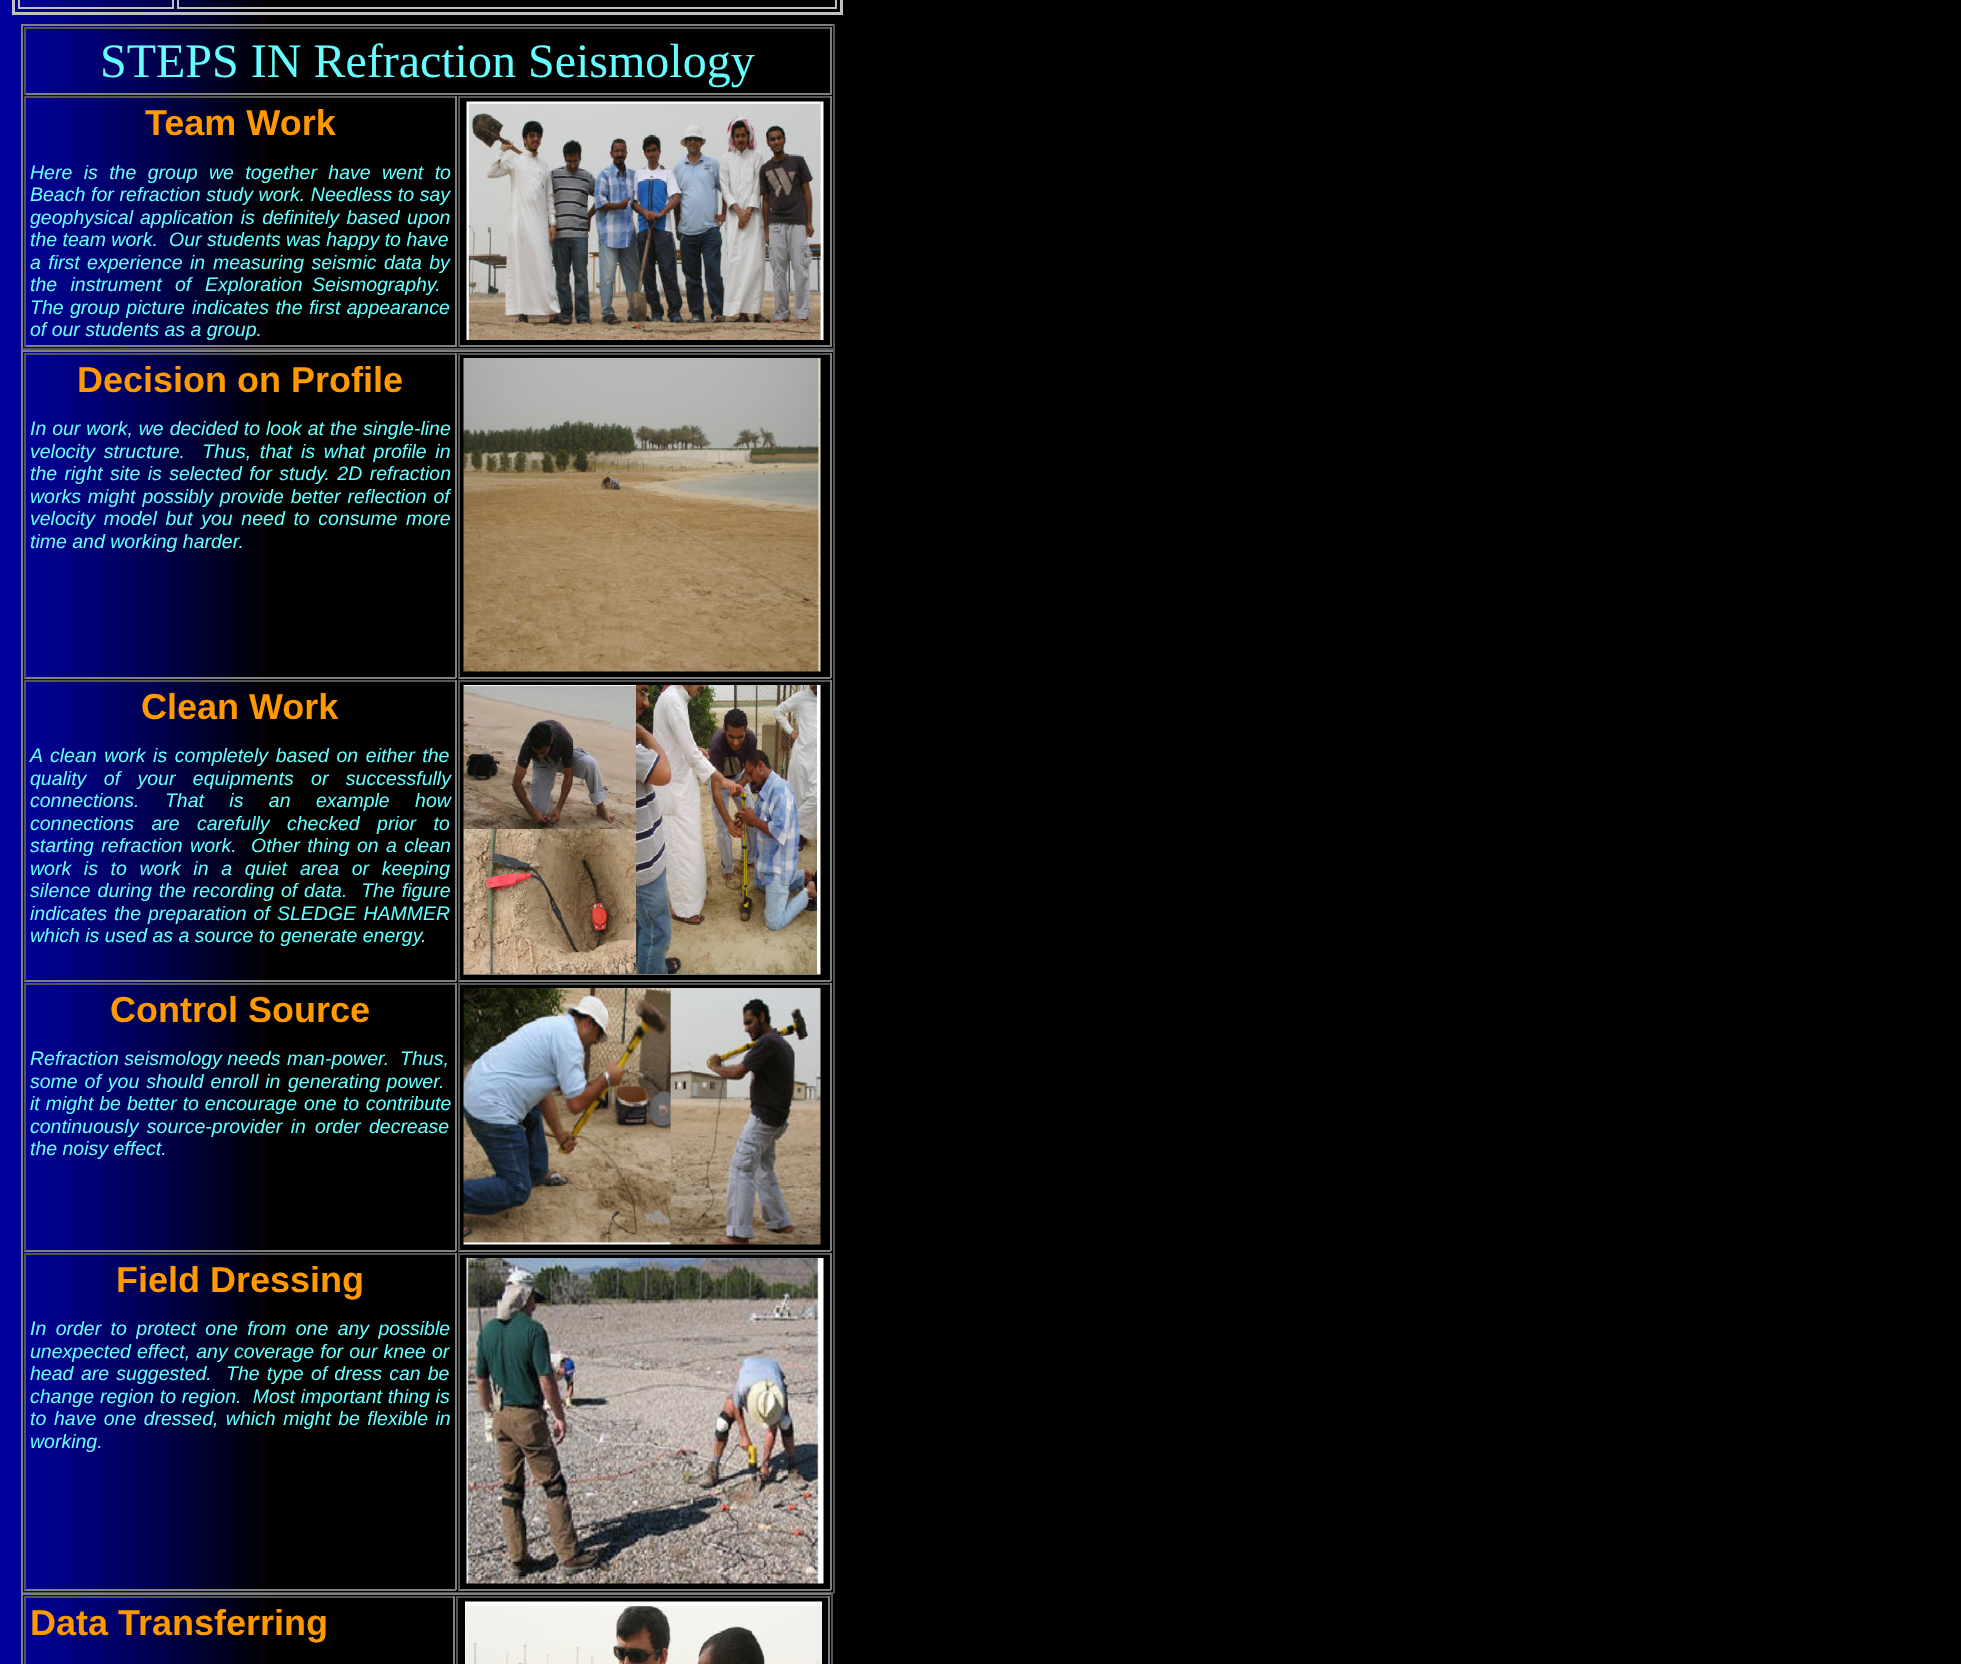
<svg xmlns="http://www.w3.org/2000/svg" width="1961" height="1664">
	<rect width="100%" height="100%" fill="#FFFFFF" />
	<image x="0" y="0" width="1961" height="1664" href="assets/img1.png" />
	<rect x="13.5" y="-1.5" width="828" height="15" fill="none" stroke="#C0C0C0" stroke-width="3" />
	<rect x="19" y="-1" width="154" height="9" fill="none" stroke="#C0C0C0" stroke-width="2" />
	<rect x="178" y="-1" width="658" height="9" fill="none" stroke="#C0C0C0" stroke-width="2" />
	<rect x="21" y="24" width="813" height="2" fill="#808080" />
	<rect x="833" y="24" width="2" height="326" fill="#555555" />
	<rect x="21" y="348" width="813" height="2" fill="#555555" />
	<rect x="21" y="24" width="2" height="326" fill="#808080" />
	<rect x="24" y="27" width="807" height="2" fill="#555555" />
	<rect x="830" y="27" width="2" height="68" fill="#808080" />
	<rect x="24" y="93" width="807" height="2" fill="#808080" />
	<rect x="24" y="27" width="2" height="68" fill="#555555" />
	<text x="100" y="77" font-family="Liberation Serif" font-size="48" fill="#66FFFF">STEPS IN Refraction Seismology</text>
	<rect x="24" y="96" width="432" height="2" fill="#555555" />
	<rect x="455" y="96" width="2" height="251" fill="#808080" />
	<rect x="24" y="345" width="432" height="2" fill="#808080" />
	<rect x="24" y="96" width="2" height="251" fill="#555555" />
	<text x="145" y="135" font-family="Liberation Sans" font-size="36" font-weight="700" fill="#FF9900">Team Work</text>
	<g font-family="Liberation Sans" font-size="19.5" font-style="italic" fill="#66FFFF">
		<text x="30" y="179" word-spacing="6">Here is the group we together have went to</text>
		<text x="30" y="201" word-spacing="0.25">Beach for refraction study work. Needless to say</text>
		<text x="30" y="224">geophysical</text>
		<text x="140" y="224" word-spacing="2">application is definitely based upon</text>
		<text x="30" y="246">the team work.</text>
		<text x="169" y="246">Our students was happy to have</text>
		<text x="30" y="269" word-spacing="2">a first experience in</text>
		<text x="213" y="269" word-spacing="2">measuring seismic data by</text>
		<text x="30" y="291" word-spacing="8">the instrument of</text>
		<text x="205" y="291" word-spacing="4">Exploration Seismography.</text>
		<text x="30" y="314" word-spacing="1">The group picture</text>
		<text x="192" y="314" word-spacing="1">indicates the first appearance</text>
		<text x="30" y="336">of our students as a group.</text>
	</g>
	<rect x="458" y="96" width="373" height="2" fill="#555555" />
	<rect x="830" y="96" width="2" height="251" fill="#808080" />
	<rect x="458" y="345" width="373" height="2" fill="#808080" />
	<rect x="458" y="96" width="2" height="251" fill="#555555" />
	<image x="466" y="101" width="358" height="239" href="assets/img2.png" />
	<rect x="21" y="350" width="813" height="2" fill="#808080" />
	<rect x="833" y="350" width="2" height="1243" fill="#555555" />
	<rect x="21" y="1592" width="813" height="2" fill="#555555" />
	<rect x="21" y="350" width="2" height="1243" fill="#808080" />
	<rect x="24" y="353" width="432" height="2" fill="#555555" />
	<rect x="455" y="353" width="2" height="325" fill="#808080" />
	<rect x="24" y="677" width="432" height="2" fill="#808080" />
	<rect x="24" y="353" width="2" height="325" fill="#555555" />
	<text x="77" y="392" font-family="Liberation Sans" font-size="36" font-weight="700" fill="#FF9900">Decision on Profile</text>
	<g font-family="Liberation Sans" font-size="19.5" font-style="italic" fill="#66FFFF">
		<text x="30" y="435" word-spacing="0.5">In our work, we decided to look at the single-line</text>
		<text x="30" y="458" word-spacing="3.25" xml:space="preserve">velocity structure.  Thus, that is what profile in</text>
		<text x="30" y="480" word-spacing="2">the right site is selected for study. 2D refraction</text>
		<text x="30" y="503" word-spacing="1.5">works might possibly provide better reflection of</text>
		<text x="30" y="525" word-spacing="3.25">velocity model but you need to consume more</text>
		<text x="30" y="548">time and working harder.</text>
	</g>
	<rect x="458" y="353" width="373" height="2" fill="#555555" />
	<rect x="830" y="353" width="2" height="325" fill="#808080" />
	<rect x="458" y="677" width="373" height="2" fill="#808080" />
	<rect x="458" y="353" width="2" height="325" fill="#555555" />
	<image x="463" y="358" width="358" height="314" href="assets/img3.png" />
	<rect x="24" y="680" width="432" height="2" fill="#555555" />
	<rect x="455" y="680" width="2" height="301" fill="#808080" />
	<rect x="24" y="980" width="432" height="2" fill="#808080" />
	<rect x="24" y="680" width="2" height="301" fill="#555555" />
	<text x="141" y="719" font-family="Liberation Sans" font-size="36" font-weight="700" fill="#FF9900">Clean Work</text>
	<g font-family="Liberation Sans" font-size="19.5" font-style="italic" fill="#66FFFF">
		<text x="30" y="762" word-spacing="2.25">A clean work is completely based on either the</text>
		<text x="30" y="785" word-spacing="12">quality of your equipments or successfully</text>
		<text x="30" y="807" word-spacing="20">connections. That is an example how</text>
		<text x="30" y="830" word-spacing="12">connections are</text>
		<text x="197" y="830" word-spacing="12">carefully checked prior to</text>
		<text x="30" y="852" word-spacing="2">starting refraction work.</text>
		<text x="251" y="852" word-spacing="2">Other thing on a clean</text>
		<text x="30" y="875" word-spacing="7.25">work is to work in a quiet</text>
		<text x="300" y="875" word-spacing="7.25">area or keeping</text>
		<text x="30" y="897" word-spacing="1.5">silence during the recording of</text>
		<text x="304" y="897" word-spacing="1.5" xml:space="preserve">data.  The figure</text>
		<text x="30" y="920" word-spacing="1.5">indicates the preparation of</text>
		<text x="277" y="920" word-spacing="2">SLEDGE HAMMER</text>
		<text x="30" y="942">which is used as a source to generate energy.</text>
	</g>
	<rect x="458" y="680" width="373" height="2" fill="#555555" />
	<rect x="830" y="680" width="2" height="301" fill="#808080" />
	<rect x="458" y="980" width="373" height="2" fill="#808080" />
	<rect x="458" y="680" width="2" height="301" fill="#555555" />
	<image x="463" y="685" width="358" height="290" href="assets/img4.png" />
	<rect x="24" y="983" width="432" height="2" fill="#555555" />
	<rect x="455" y="983" width="2" height="268" fill="#808080" />
	<rect x="24" y="1250" width="432" height="2" fill="#808080" />
	<rect x="24" y="983" width="2" height="268" fill="#555555" />
	<text x="110" y="1022" font-family="Liberation Sans" font-size="36" font-weight="700" fill="#FF9900">Control Source</text>
	<g font-family="Liberation Sans" font-size="19.5" font-style="italic" fill="#66FFFF">
		<text x="30" y="1065">Refraction seismology needs</text>
		<text x="287" y="1065" xml:space="preserve">man-power.  Thus,</text>
		<text x="30" y="1088" word-spacing="1.5">some of you should enroll in</text>
		<text x="288" y="1088" word-spacing="1">generating power.</text>
		<text x="30" y="1110" word-spacing="0.5">it might be better to encourage</text>
		<text x="304" y="1110" word-spacing="1">one to contribute</text>
		<text x="30" y="1133" word-spacing="3">continuously source-provider in</text>
		<text x="315" y="1133" word-spacing="3">order decrease</text>
		<text x="30" y="1155">the noisy effect.</text>
	</g>
	<rect x="458" y="983" width="373" height="2" fill="#555555" />
	<rect x="830" y="983" width="2" height="268" fill="#808080" />
	<rect x="458" y="1250" width="373" height="2" fill="#808080" />
	<rect x="458" y="983" width="2" height="268" fill="#555555" />
	<image x="463" y="988" width="358" height="257" href="assets/img5.png" />
	<rect x="24" y="1253" width="432" height="2" fill="#555555" />
	<rect x="455" y="1253" width="2" height="337" fill="#808080" />
	<rect x="24" y="1589" width="432" height="2" fill="#808080" />
	<rect x="24" y="1253" width="2" height="337" fill="#555555" />
	<text x="116" y="1292" font-family="Liberation Sans" font-size="36" font-weight="700" fill="#FF9900">Field Dressing</text>
	<g font-family="Liberation Sans" font-size="19.5" font-style="italic" fill="#66FFFF">
		<text x="30" y="1335" word-spacing="4">In order to protect one from one any possible</text>
		<text x="30" y="1358" word-spacing="0.75">unexpected effect, any coverage for our knee or</text>
		<text x="30" y="1380">head</text>
		<text x="81" y="1380" word-spacing="1.75" xml:space="preserve">are suggested.  The type of dress can be</text>
		<text x="30" y="1403">change</text>
		<text x="100" y="1403" word-spacing="0.25" xml:space="preserve">region to region.  Most important thing is</text>
		<text x="30" y="1425">to</text>
		<text x="54" y="1425" word-spacing="2">have one dressed, which might be flexible in</text>
		<text x="30" y="1448">working.</text>
	</g>
	<rect x="458" y="1253" width="373" height="2" fill="#555555" />
	<rect x="830" y="1253" width="2" height="337" fill="#808080" />
	<rect x="458" y="1589" width="373" height="2" fill="#808080" />
	<rect x="458" y="1253" width="2" height="337" fill="#555555" />
	<image x="466" y="1258" width="358" height="326" href="assets/img6.png" />
	<rect x="21" y="1593" width="812" height="2" fill="#808080" />
	<rect x="831" y="1593" width="2" height="71" fill="#555555" />
	<rect x="21" y="1593" width="2" height="71" fill="#808080" />
	<rect x="24" y="1596" width="431" height="2" fill="#555555" />
	<rect x="453" y="1596" width="2" height="68" fill="#808080" />
	<rect x="24" y="1596" width="2" height="68" fill="#555555" />
	<text x="30" y="1635" font-family="Liberation Sans" font-size="36" font-weight="700" fill="#FF9900">Data Transferring</text>
	<rect x="456" y="1596" width="374" height="2" fill="#555555" />
	<rect x="828" y="1596" width="2" height="68" fill="#808080" />
	<rect x="456" y="1596" width="2" height="68" fill="#555555" />
	<image x="465" y="1601" width="357" height="63" href="assets/img7.png" />
</svg>
